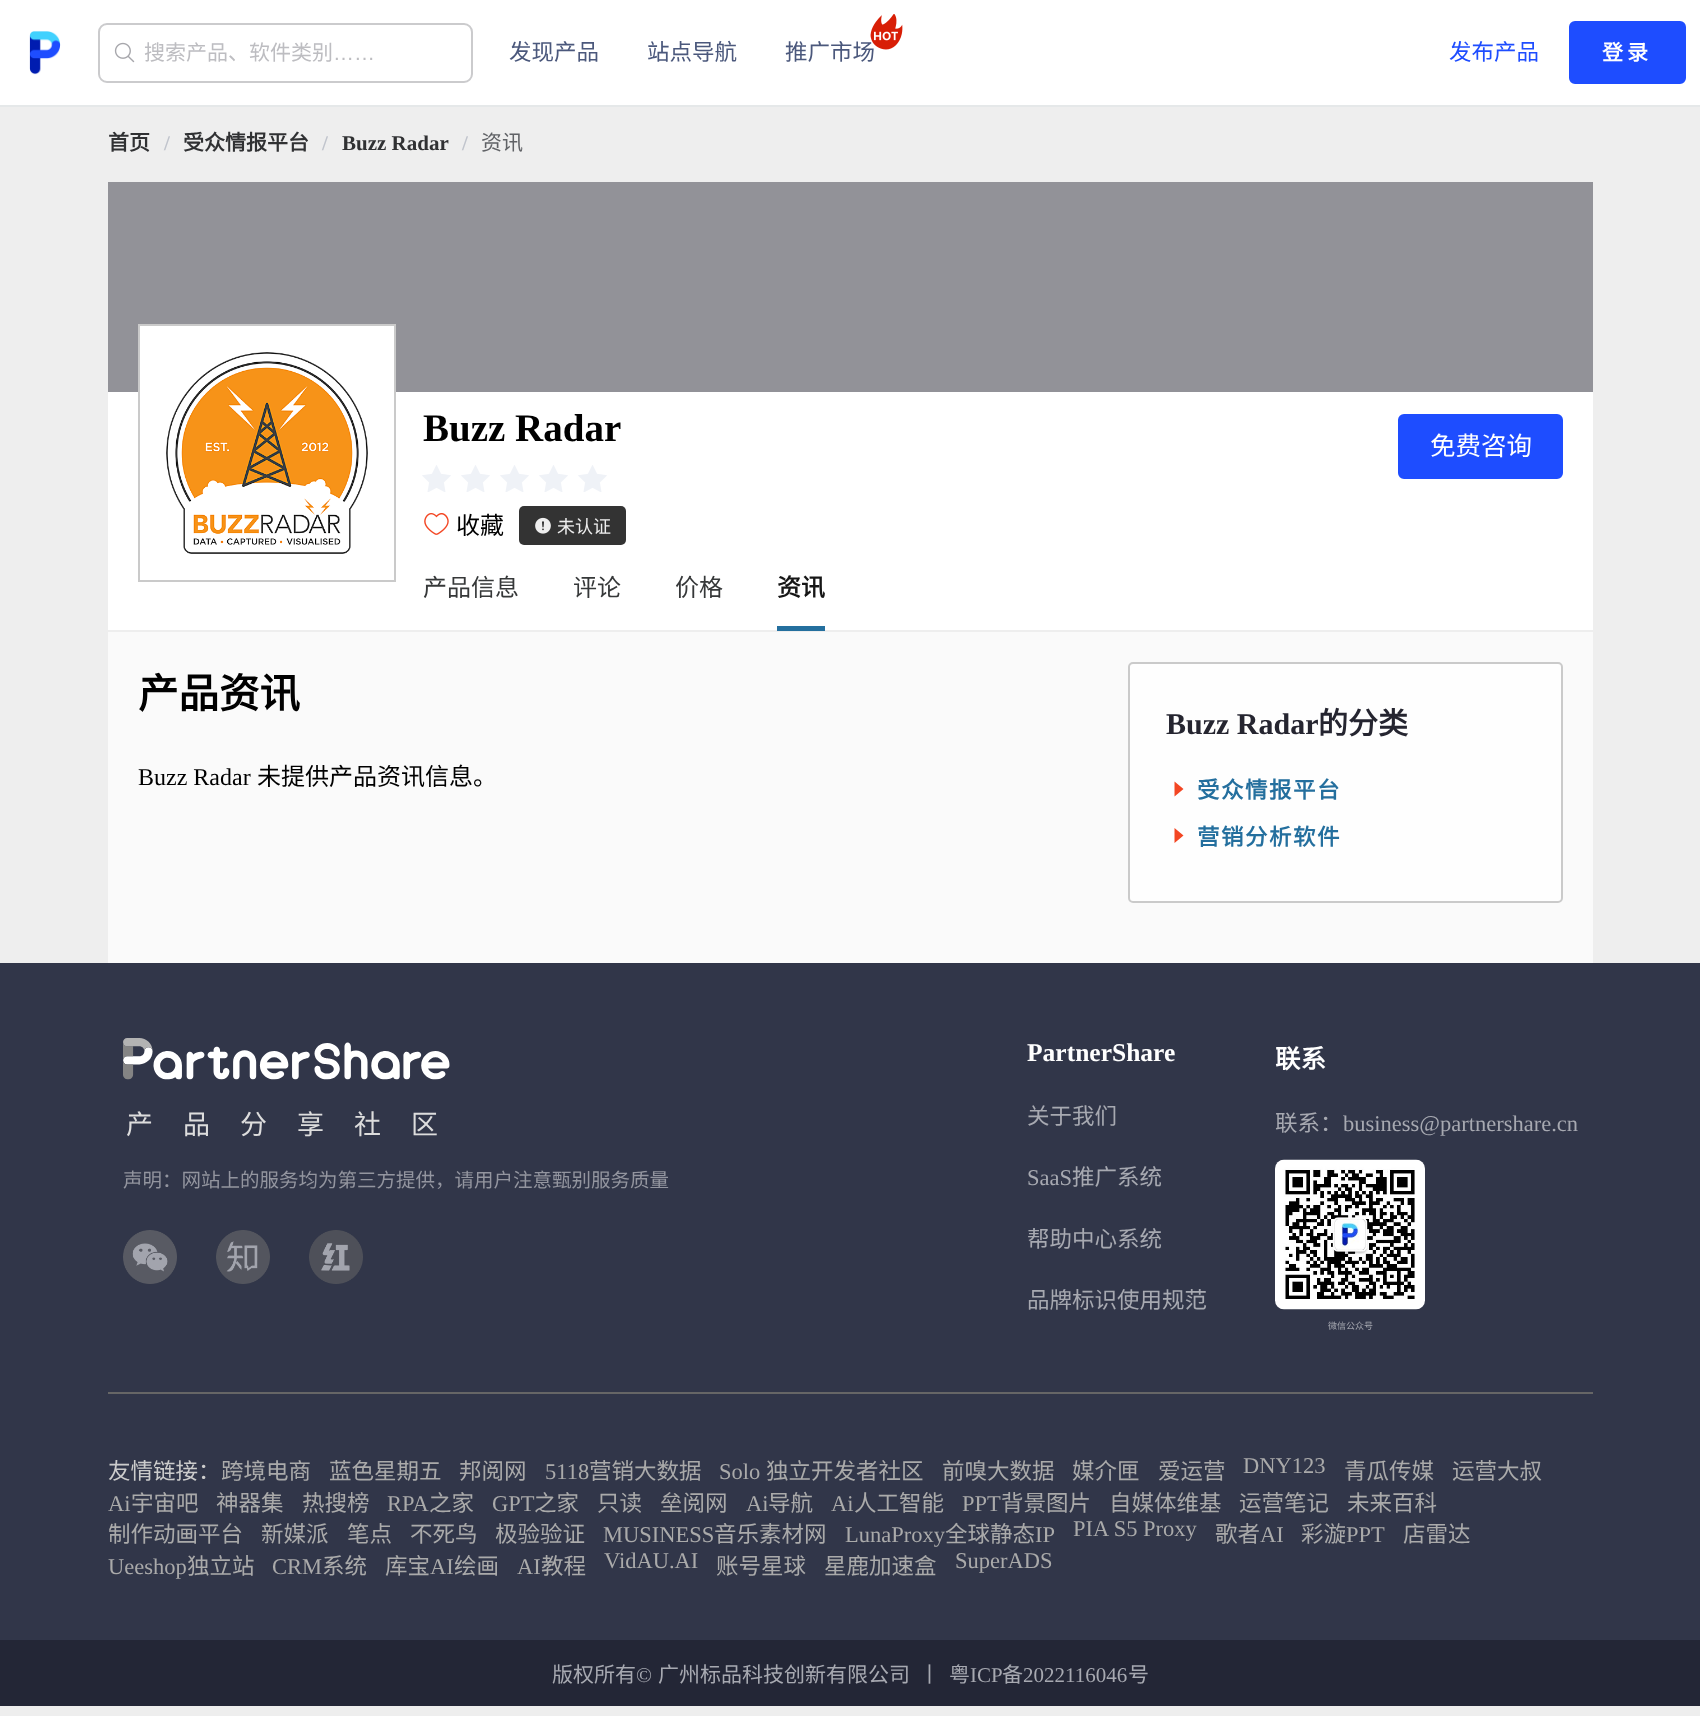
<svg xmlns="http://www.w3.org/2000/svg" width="1700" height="1716">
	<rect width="100%" height="100%" fill="#EEEEEE" />
	<rect x="0" y="0" width="1700" height="105" fill="#FFFFFF" />
	<rect x="0" y="105" width="1700" height="2" fill="#E5E8E9" />
	<image x="29" y="31" width="32" height="44" href="assets/img1.png" />
	<rect x="99" y="24" width="373" height="58" rx="8" fill="none" stroke="#CBCBCD" stroke-width="2" />
	<image x="114" y="42" width="21" height="21" href="assets/img2.png" />
	<text x="144" y="60" font-family="Noto Sans CJK SC" font-size="21" fill="#BDBDC1">搜索产品、软件类别</text>
	<text x="333" y="60" font-family="Liberation Sans" font-size="21" fill="#BDBDC1">……</text>
	<g font-family="Noto Sans CJK SC" font-size="22.5" fill="#4B587C">
		<text x="509" y="60">发现产品</text>
		<text x="647" y="60">站点导航</text>
		<text x="785" y="60">推广市场</text>
	</g>
	<image x="870" y="14" width="33" height="36" href="assets/img3.png" />
	<text x="1449" y="60" font-family="Noto Sans CJK SC" font-size="22.5" fill="#1E4DFF">发布产品</text>
	<rect x="1570.5" y="22.5" width="114" height="60" rx="4.5" fill="#1E4DFF" stroke="#1E4DFF" stroke-width="3" />
	<text x="1602" y="60" font-family="Noto Sans CJK SC" font-size="21" font-weight="700" letter-spacing="4" fill="#FFFFFF">登录</text>
	<text x="108" y="150" font-family="Noto Sans CJK SC" font-size="21" font-weight="700" fill="#303133">首页</text>
	<text x="164" y="150" font-family="Liberation Serif" font-size="21" font-weight="700" fill="#C0C4CC">/</text>
	<text x="183" y="150" font-family="Noto Sans CJK SC" font-size="21" font-weight="700" fill="#303133">受众情报平台</text>
	<text x="322" y="150" font-family="Liberation Serif" font-size="21" font-weight="700" fill="#C0C4CC">/</text>
	<text x="342" y="150" font-family="Liberation Serif" font-size="21" font-weight="700" fill="#303133">Buzz Radar</text>
	<text x="462" y="150" font-family="Liberation Serif" font-size="21" font-weight="700" fill="#C0C4CC">/</text>
	<text x="481" y="150" font-family="Noto Sans CJK SC" font-size="21" fill="#606266">资讯</text>
	<rect x="108" y="182" width="1485" height="210" fill="#929298" />
	<rect x="108" y="392" width="1485" height="238" fill="#FFFFFF" />
	<rect x="140" y="326" width="254" height="66" fill="#FFFFFF" />
	<rect x="139" y="325" width="256" height="256" fill="none" stroke="#CACACA" stroke-width="2" />
	<image x="166" y="352" width="202" height="202" href="assets/img4.png" />
	<text x="423" y="441" font-family="Liberation Serif" font-size="39" font-weight="700" fill="#000000">Buzz Radar</text>
	<image x="422" y="465" width="29" height="27" href="assets/img5.png" />
	<image x="461" y="465" width="29" height="27" href="assets/img5.png" />
	<image x="500" y="465" width="29" height="27" href="assets/img5.png" />
	<image x="539" y="465" width="29" height="27" href="assets/img5.png" />
	<image x="578" y="465" width="29" height="27" href="assets/img5.png" />
	<image x="424" y="513" width="25" height="22" href="assets/img6.png" />
	<text x="456" y="534" font-family="Noto Sans CJK SC" font-size="24" fill="#000000">收藏</text>
	<rect x="519" y="506" width="107" height="39" rx="5" fill="#333333" />
	<image x="535" y="517" width="16" height="17" href="assets/img7.png" />
	<text x="557" y="533" font-family="Noto Sans CJK SC" font-size="18" fill="#EEEEEE">未认证</text>
	<rect x="1399" y="415" width="163" height="63" rx="5" fill="#1E4DFF" stroke="#1E4DFF" stroke-width="2" />
	<text x="1430" y="455" font-family="Noto Sans CJK SC" font-size="25.5" fill="#FFFFFF">免费咨询</text>
	<g font-family="Noto Sans CJK SC" font-size="24" fill="#363839">
		<text x="423" y="596">产品信息</text>
		<text x="573" y="596">评论</text>
		<text x="675" y="596">价格</text>
	</g>
	<rect x="777" y="626" width="48" height="5" fill="#246F9E" />
	<text x="777" y="596" font-family="Noto Sans CJK SC" font-size="24" font-weight="700" fill="#161616">资讯</text>
	<rect x="108" y="632" width="1485" height="331" fill="#FAFAFA" />
	<text x="138" y="708" font-family="Noto Sans CJK SC" font-size="40.5" font-weight="700" fill="#000000">产品资讯</text>
	<text x="138" y="785" font-family="Liberation Serif" font-size="24" fill="#000000">Buzz Radar</text>
	<text x="257" y="785" font-family="Noto Sans CJK SC" font-size="24" fill="#000000">未提供产品资讯信息。</text>
	<rect x="1129" y="663" width="433" height="239" rx="4" fill="#FEFEFE" stroke="#CACACA" stroke-width="2" />
	<text x="1166" y="734" font-family="Liberation Serif" font-size="30" font-weight="700" fill="#252530">Buzz Radar</text>
	<text x="1318" y="734" font-family="Noto Sans CJK SC" font-size="30" font-weight="700" fill="#252530">的分类</text>
	<path d="M1174.5 781.5V796.5L1183.5 789ZM1174.5 828V843L1183.5 835.5Z" fill="#F34623" />
	<g font-family="Noto Sans CJK SC" font-size="22.5" font-weight="700" letter-spacing="1.5" fill="#246F9E">
		<text x="1197" y="798">受众情报平台</text>
		<text x="1197" y="845">营销分析软件</text>
	</g>
	<rect x="0" y="963" width="1700" height="677" fill="#313649" />
	<image x="123" y="1038" width="327" height="42" href="assets/img8.png" />
	<text x="126" y="1134" font-family="Noto Sans CJK SC" font-size="27" letter-spacing="30" fill="#DDDDDD">产品分享社区</text>
	<text x="123" y="1187" font-family="Noto Sans CJK SC" font-size="19.5" fill="#93959F">声明：网站上的服务均为第三方提供，请用户注意甄别服务质量</text>
	<image x="123" y="1230" width="54" height="54" href="assets/img9.png" />
	<image x="216" y="1230" width="54" height="54" href="assets/img10.png" />
	<image x="309" y="1230" width="54" height="54" href="assets/img11.png" />
	<text x="1027" y="1061" font-family="Liberation Serif" font-size="25.5" font-weight="700" fill="#FFFFFF">PartnerShare</text>
	<text x="1027" y="1124" font-family="Noto Sans CJK SC" font-size="22.5" fill="#A7A9B1">关于我们</text>
	<text x="1027" y="1185" font-family="Liberation Serif" font-size="22.5" fill="#A7A9B1">SaaS</text>
	<g font-family="Noto Sans CJK SC" font-size="22.5" fill="#A7A9B1">
		<text x="1072" y="1185">推广系统</text>
		<text x="1027" y="1247">帮助中心系统</text>
		<text x="1027" y="1308">品牌标识使用规范</text>
	</g>
	<text x="1275" y="1068" font-family="Noto Sans CJK SC" font-size="25.5" font-weight="700" fill="#FFFFFF">联系</text>
	<text x="1275" y="1131" font-family="Noto Sans CJK SC" font-size="22.5" fill="#A7A9B1">联系：</text>
	<text x="1343" y="1131" font-family="Liberation Serif" font-size="22.5" fill="#A7A9B1">business@partnershare.cn</text>
	<image x="1275" y="1159" width="150" height="151" href="assets/img12.png" />
	<text x="1328" y="1329" font-family="Noto Sans CJK SC" font-size="9" fill="#A7A9B1">微信公众号</text>
	<rect x="108" y="1392" width="1485" height="2" fill="#666666" />
	<text x="108" y="1479" font-family="Noto Sans CJK SC" font-size="22.5" fill="#CCCCCC">友情链接：</text>
	<g font-family="Noto Sans CJK SC" font-size="22.5" fill="#AAAAAA">
		<text x="221" y="1479">跨境电商</text>
		<text x="329" y="1479">蓝色星期五</text>
		<text x="459" y="1479">邦阅网</text>
	</g>
	<text x="545" y="1479" font-family="Liberation Serif" font-size="22.5" fill="#AAAAAA">5118</text>
	<text x="589" y="1479" font-family="Noto Sans CJK SC" font-size="22.5" fill="#AAAAAA">营销大数据</text>
	<text x="719" y="1479" font-family="Liberation Serif" font-size="22.5" fill="#AAAAAA">Solo</text>
	<g font-family="Noto Sans CJK SC" font-size="22.5" fill="#AAAAAA">
		<text x="766" y="1479">独立开发者社区</text>
		<text x="942" y="1479">前嗅大数据</text>
		<text x="1072" y="1479">媒介匣</text>
		<text x="1158" y="1479">爱运营</text>
	</g>
	<text x="1243" y="1473" font-family="Liberation Serif" font-size="22.5" fill="#AAAAAA">DNY123</text>
	<g font-family="Noto Sans CJK SC" font-size="22.5" fill="#AAAAAA">
		<text x="1344" y="1479">青瓜传媒</text>
		<text x="1452" y="1479">运营大叔</text>
	</g>
	<text x="108" y="1511" font-family="Liberation Serif" font-size="22.5" fill="#AAAAAA">Ai</text>
	<g font-family="Noto Sans CJK SC" font-size="22.5" fill="#AAAAAA">
		<text x="131" y="1511">宇宙吧</text>
		<text x="216" y="1511">神器集</text>
		<text x="302" y="1511">热搜榜</text>
	</g>
	<text x="387" y="1511" font-family="Liberation Serif" font-size="22.5" fill="#AAAAAA">RPA</text>
	<text x="429" y="1511" font-family="Noto Sans CJK SC" font-size="22.5" fill="#AAAAAA">之家</text>
	<text x="492" y="1511" font-family="Liberation Serif" font-size="22.5" fill="#AAAAAA">GPT</text>
	<g font-family="Noto Sans CJK SC" font-size="22.5" fill="#AAAAAA">
		<text x="534" y="1511">之家</text>
		<text x="597" y="1511">只读</text>
		<text x="660" y="1511">垒阅网</text>
	</g>
	<text x="746" y="1511" font-family="Liberation Serif" font-size="22.5" fill="#AAAAAA">Ai</text>
	<text x="768" y="1511" font-family="Noto Sans CJK SC" font-size="22.5" fill="#AAAAAA">导航</text>
	<text x="831" y="1511" font-family="Liberation Serif" font-size="22.5" fill="#AAAAAA">Ai</text>
	<text x="854" y="1511" font-family="Noto Sans CJK SC" font-size="22.5" fill="#AAAAAA">人工智能</text>
	<text x="962" y="1511" font-family="Liberation Serif" font-size="22.5" fill="#AAAAAA">PPT</text>
	<g font-family="Noto Sans CJK SC" font-size="22.5" fill="#AAAAAA">
		<text x="1001" y="1511">背景图片</text>
		<text x="1109" y="1511">自媒体维基</text>
		<text x="1239" y="1511">运营笔记</text>
		<text x="1347" y="1511">未来百科</text>
		<text x="108" y="1542">制作动画平台</text>
		<text x="261" y="1542">新媒派</text>
		<text x="347" y="1542">笔点</text>
		<text x="410" y="1542">不死鸟</text>
		<text x="495" y="1542">极验验证</text>
	</g>
	<text x="603" y="1542" font-family="Liberation Serif" font-size="22.5" fill="#AAAAAA">MUSINESS</text>
	<text x="714" y="1542" font-family="Noto Sans CJK SC" font-size="22.5" fill="#AAAAAA">音乐素材网</text>
	<text x="845" y="1542" font-family="Liberation Serif" font-size="22.5" fill="#AAAAAA">LunaProxy</text>
	<text x="945" y="1542" font-family="Noto Sans CJK SC" font-size="22.5" fill="#AAAAAA">全球静态</text>
	<g font-family="Liberation Serif" font-size="22.5" fill="#AAAAAA">
		<text x="1035" y="1542">IP</text>
		<text x="1073" y="1536">PIA S5 Proxy</text>
	</g>
	<text x="1215" y="1542" font-family="Noto Sans CJK SC" font-size="22.5" fill="#AAAAAA">歌者</text>
	<text x="1260" y="1542" font-family="Liberation Serif" font-size="22.5" fill="#AAAAAA">AI</text>
	<text x="1301" y="1542" font-family="Noto Sans CJK SC" font-size="22.5" fill="#AAAAAA">彩漩</text>
	<text x="1346" y="1542" font-family="Liberation Serif" font-size="22.5" fill="#AAAAAA">PPT</text>
	<text x="1403" y="1542" font-family="Noto Sans CJK SC" font-size="22.5" fill="#AAAAAA">店雷达</text>
	<text x="108" y="1574" font-family="Liberation Serif" font-size="22.5" fill="#AAAAAA">Ueeshop</text>
	<text x="187" y="1574" font-family="Noto Sans CJK SC" font-size="22.5" fill="#AAAAAA">独立站</text>
	<text x="272" y="1574" font-family="Liberation Serif" font-size="22.5" fill="#AAAAAA">CRM</text>
	<g font-family="Noto Sans CJK SC" font-size="22.5" fill="#AAAAAA">
		<text x="322" y="1574">系统</text>
		<text x="385" y="1574">库宝</text>
	</g>
	<text x="430" y="1574" font-family="Liberation Serif" font-size="22.5" fill="#AAAAAA">AI</text>
	<text x="454" y="1574" font-family="Noto Sans CJK SC" font-size="22.5" fill="#AAAAAA">绘画</text>
	<text x="517" y="1574" font-family="Liberation Serif" font-size="22.5" fill="#AAAAAA">AI</text>
	<text x="541" y="1574" font-family="Noto Sans CJK SC" font-size="22.5" fill="#AAAAAA">教程</text>
	<text x="604" y="1568" font-family="Liberation Serif" font-size="22.5" fill="#AAAAAA">VidAU.AI</text>
	<g font-family="Noto Sans CJK SC" font-size="22.5" fill="#AAAAAA">
		<text x="716" y="1574">账号星球</text>
		<text x="824" y="1574">星鹿加速盒</text>
	</g>
	<text x="955" y="1568" font-family="Liberation Serif" font-size="22.5" fill="#AAAAAA">SuperADS</text>
	<rect x="0" y="1640" width="1700" height="66" fill="#232636" />
	<text x="552" y="1682" font-family="Noto Sans CJK SC" font-size="21" fill="#A7A9B1">版权所有</text>
	<text x="636" y="1682" font-family="Liberation Serif" font-size="21" fill="#A7A9B1">©</text>
	<g font-family="Noto Sans CJK SC" font-size="21" fill="#A7A9B1">
		<text x="658" y="1682">广州标品科技创新有限公司</text>
		<text x="919" y="1682">丨</text>
		<text x="949" y="1682">粤</text>
	</g>
	<text x="970" y="1682" font-family="Liberation Serif" font-size="21" fill="#A7A9B1">ICP</text>
	<text x="1002" y="1682" font-family="Noto Sans CJK SC" font-size="21" fill="#A7A9B1">备</text>
	<text x="1023" y="1682" font-family="Liberation Serif" font-size="21" fill="#A7A9B1">2022116046</text>
	<text x="1128" y="1682" font-family="Noto Sans CJK SC" font-size="21" fill="#A7A9B1">号</text>
</svg>
